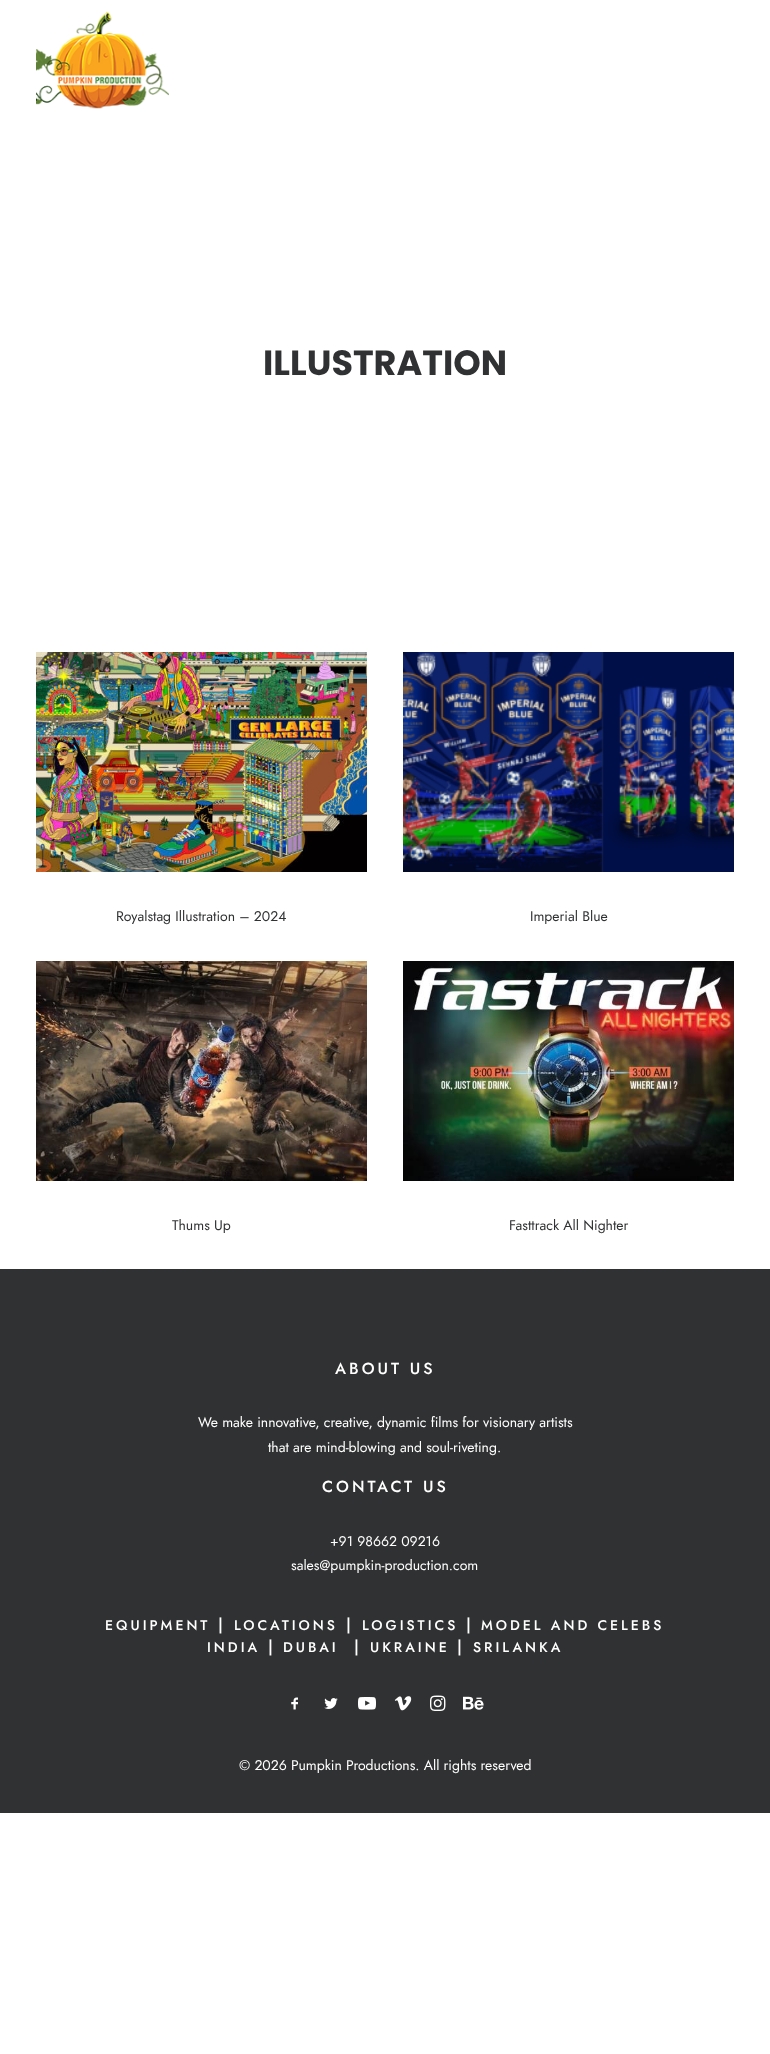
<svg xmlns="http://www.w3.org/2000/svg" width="770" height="2054">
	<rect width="100%" height="100%" fill="#FFFFFF" />
	<image x="36" y="11" width="133" height="98" href="assets/img1.png" />
	<text x="263" y="375" font-family="Poppins" font-size="35" font-weight="700" fill="#303133">ILLUSTRATION</text>
	<image x="36" y="652" width="331" height="220" href="assets/img2.png" />
	<text x="116" y="921" font-family="Jost" font-size="14" fill="#303133">Royalstag Illustration – 2024</text>
	<image x="403" y="652" width="331" height="220" href="assets/img3.png" />
	<text x="530" y="921" font-family="Jost" font-size="14" fill="#303133">Imperial Blue</text>
	<image x="36" y="961" width="331" height="220" href="assets/img4.png" />
	<text x="172" y="1230" font-family="Jost" font-size="14" fill="#303133">Thums Up</text>
	<image x="403" y="961" width="331" height="220" href="assets/img5.png" />
	<text x="509" y="1230" font-family="Jost" font-size="14" fill="#303133">Fasttrack All Nighter</text>
	<rect x="0" y="1269" width="770" height="544" fill="#303133" />
	<text x="335" y="1374" font-family="Jost" font-size="16" font-weight="500" letter-spacing="3" fill="#FFFFFF">ABOUT US</text>
	<g font-family="Jost" font-size="14" fill="#FFFFFF">
		<text x="198" y="1427">We make innovative, creative, dynamic films for visionary artists</text>
		<text x="268" y="1452">that are mind-blowing and soul-riveting.</text>
	</g>
	<text x="322" y="1492" font-family="Jost" font-size="16" font-weight="500" letter-spacing="3" fill="#FFFFFF">CONTACT US</text>
	<g font-family="Jost" font-size="14" fill="#FFFFFF">
		<text x="330" y="1546">+91 98662 09216</text>
		<text x="291" y="1570">sales@pumpkin-production.com</text>
	</g>
	<text x="105" y="1630" font-family="Jost" font-size="14" font-weight="500" letter-spacing="3" fill="#FFFFFF">EQUIPMENT</text>
	<text x="218" y="1630" font-family="Jost" font-size="16" font-weight="500" letter-spacing="3" fill="#FFFFFF">|</text>
	<text x="234" y="1630" font-family="Jost" font-size="14" font-weight="500" letter-spacing="3" fill="#FFFFFF">LOCATIONS</text>
	<text x="346" y="1630" font-family="Jost" font-size="16" font-weight="500" letter-spacing="3" fill="#FFFFFF">|</text>
	<text x="362" y="1630" font-family="Jost" font-size="14" font-weight="500" letter-spacing="3" fill="#FFFFFF">LOGISTICS</text>
	<text x="466" y="1630" font-family="Jost" font-size="16" font-weight="500" letter-spacing="3" fill="#FFFFFF">|</text>
	<g font-family="Jost" font-size="14" font-weight="500" letter-spacing="3" fill="#FFFFFF">
		<text x="481" y="1630">MODEL AND CELEBS</text>
		<text x="207" y="1652">INDIA</text>
	</g>
	<text x="268" y="1652" font-family="Jost" font-size="16" font-weight="500" letter-spacing="3" fill="#FFFFFF">|</text>
	<text x="283" y="1652" font-family="Jost" font-size="14" font-weight="500" letter-spacing="3" fill="#FFFFFF">DUBAI</text>
	<text x="354" y="1652" font-family="Jost" font-size="16" font-weight="500" letter-spacing="3" fill="#FFFFFF">|</text>
	<text x="370" y="1652" font-family="Jost" font-size="14" font-weight="500" letter-spacing="3" fill="#FFFFFF">UKRAINE</text>
	<text x="457" y="1652" font-family="Jost" font-size="16" font-weight="500" letter-spacing="3" fill="#FFFFFF">|</text>
	<text x="473" y="1652" font-family="Jost" font-size="14" font-weight="500" letter-spacing="3" fill="#FFFFFF">SRILANKA</text>
	<image x="291" y="1697" width="7" height="13" href="assets/img6.png" />
	<image x="324" y="1698" width="14" height="11" href="assets/img7.png" />
	<image x="358" y="1697" width="18" height="13" href="assets/img8.png" />
	<image x="394" y="1696" width="18" height="15" href="assets/img9.png" />
	<image x="430" y="1695" width="16" height="16" href="assets/img10.png" />
	<image x="463" y="1696" width="21" height="14" href="assets/img11.png" />
	<text x="239" y="1770" font-family="Jost" font-size="14" fill="#FFFFFF">© 2026 Pumpkin Productions. All rights reserved</text>
</svg>
